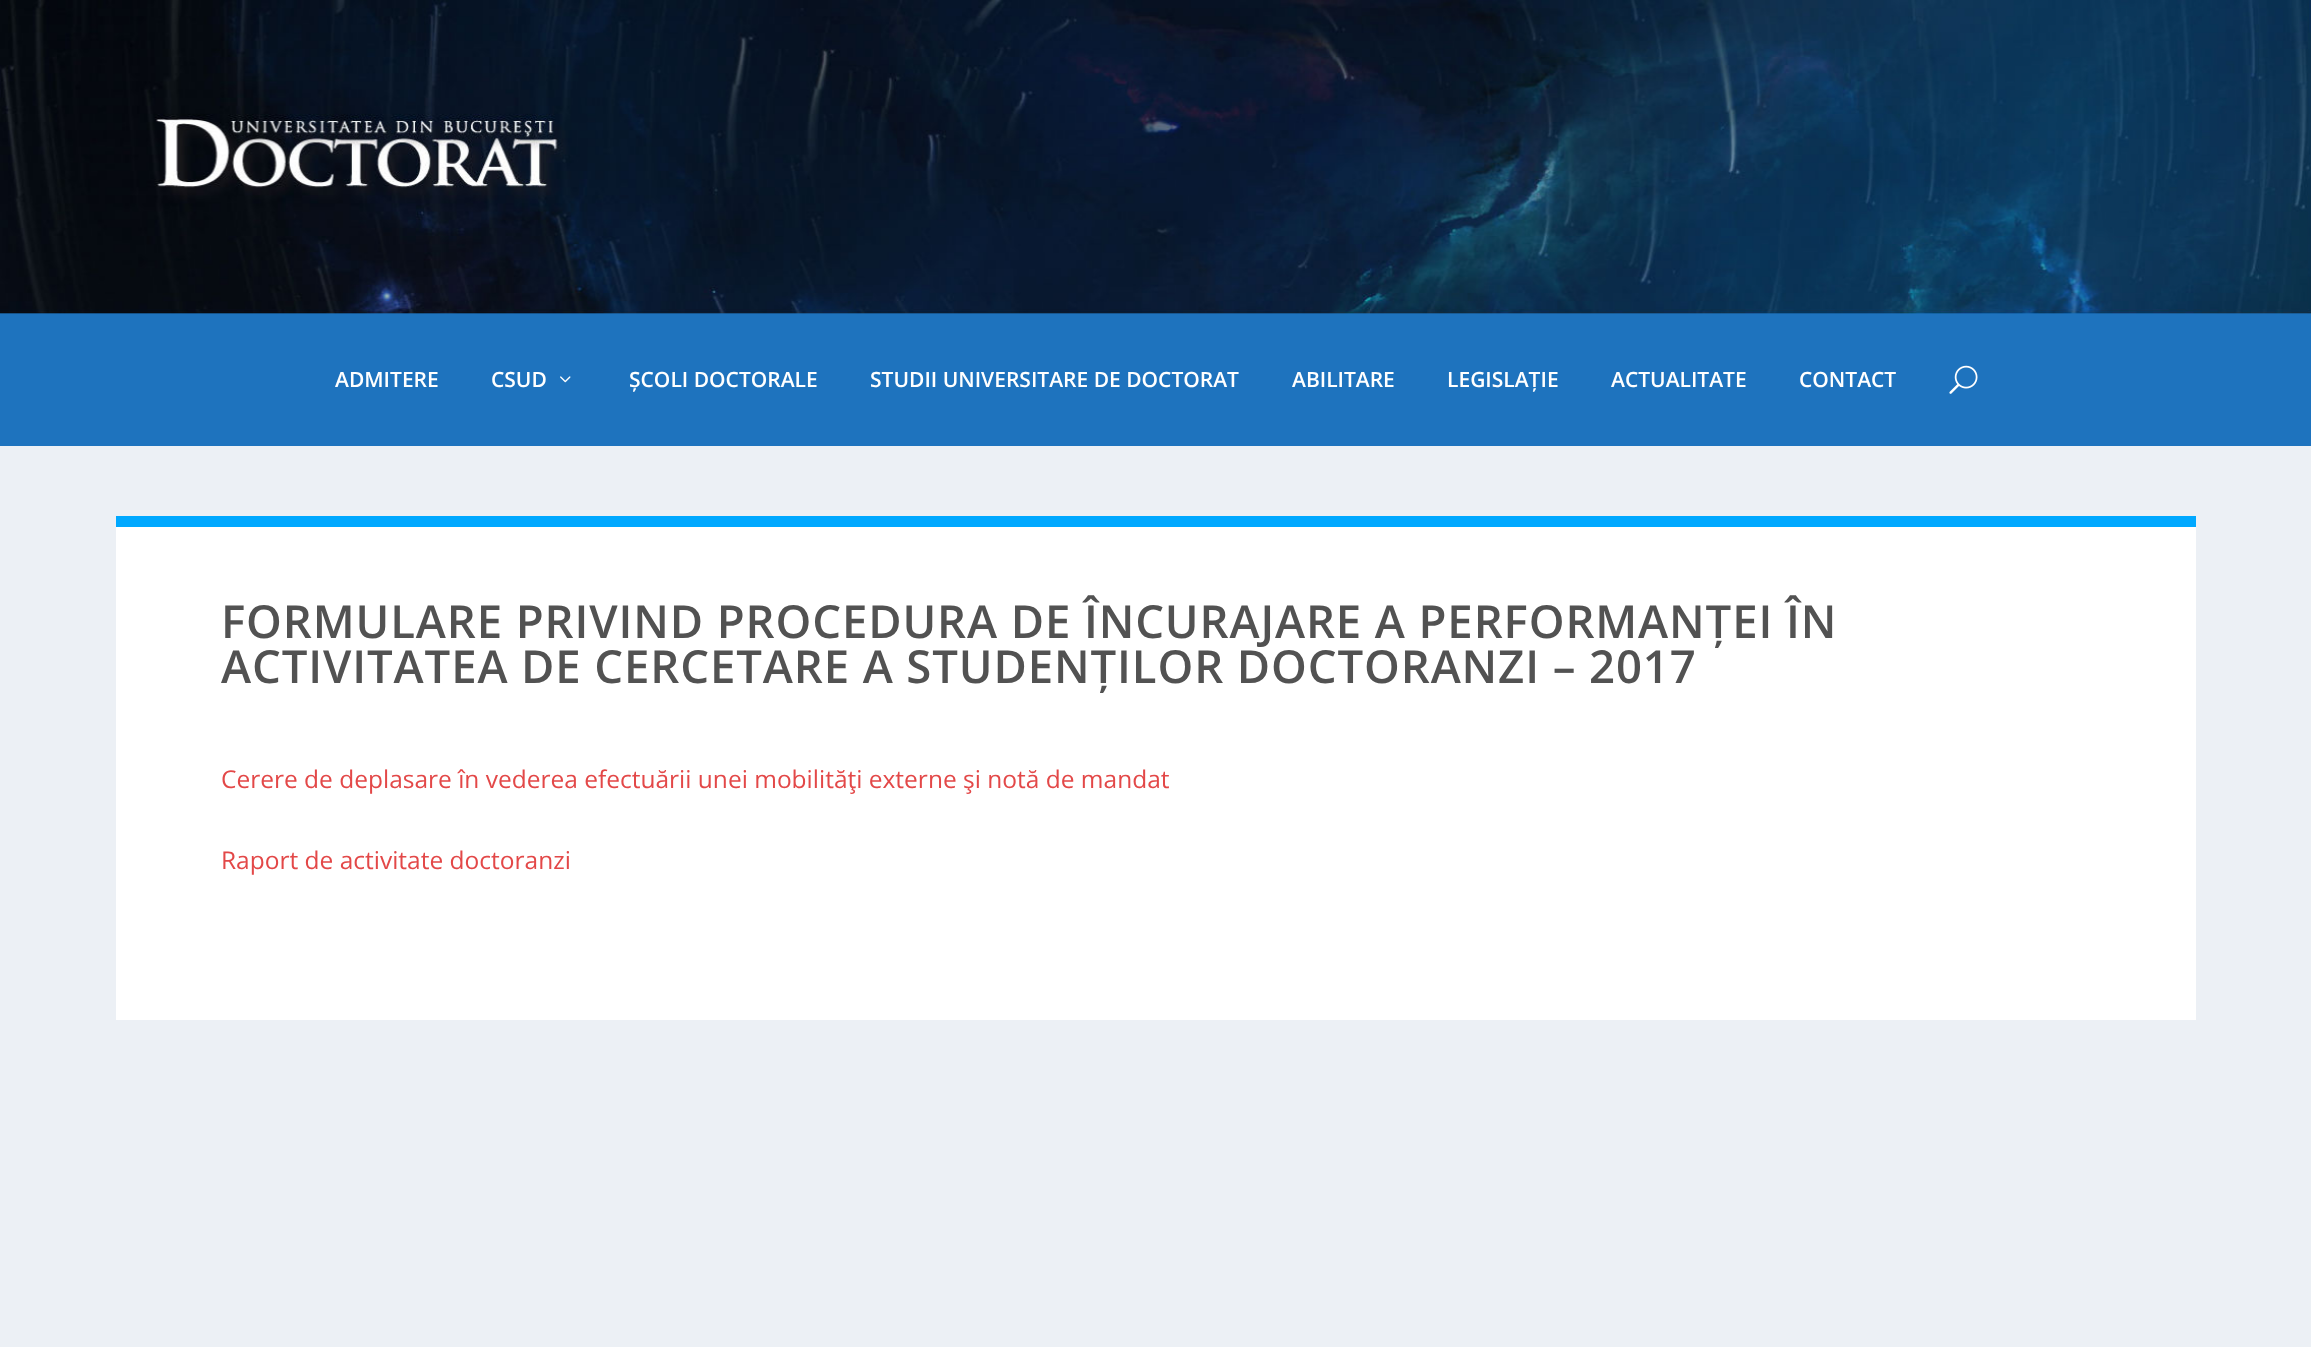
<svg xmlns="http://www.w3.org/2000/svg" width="2311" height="1347">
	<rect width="100%" height="100%" fill="#ECF0F5" />
	<rect x="0" y="313" width="2311" height="133" fill="#1E73BE" />
	<image x="0" y="0" width="2311" height="314" href="assets/img1.png" />
	<g font-family="Open Sans" font-size="21" font-weight="600" fill="#FFFFFF">
		<text x="335" y="387">ADMITERE</text>
		<text x="491" y="387">CSUD</text>
	</g>
	<image x="560" y="376" width="11" height="7" href="assets/img2.png" />
	<g font-family="Open Sans" font-size="21" font-weight="600" fill="#FFFFFF">
		<text x="629" y="387">ȘCOLI DOCTORALE</text>
		<text x="870" y="387">STUDII UNIVERSITARE DE DOCTORAT</text>
		<text x="1292" y="387">ABILITARE</text>
		<text x="1447" y="387">LEGISLAȚIE</text>
		<text x="1611" y="387">ACTUALITATE</text>
		<text x="1799" y="387">CONTACT</text>
	</g>
	<image x="1949" y="365" width="29" height="29" href="assets/img3.png" />
	<rect x="116" y="527" width="2080" height="493" fill="#FFFFFF" />
	<rect x="116" y="516" width="2080" height="11" fill="#00A8FF" />
	<g font-family="Open Sans" font-size="45.5" font-weight="600" letter-spacing="0.88" fill="#525252">
		<text x="221" y="638">FORMULARE PRIVIND PROCEDURA DE ÎNCURAJARE A PERFORMANȚEI ÎN</text>
		<text x="221" y="683">ACTIVITATEA DE CERCETARE A STUDENȚILOR DOCTORANZI – 2017</text>
	</g>
	<g font-family="Open Sans" font-size="24.5" fill="#E34848">
		<text x="221" y="788">Cerere de deplasare în vederea efectuării unei mobilităţi externe şi notă de mandat</text>
		<text x="221" y="869">Raport de activitate doctoranzi</text>
	</g>
</svg>
